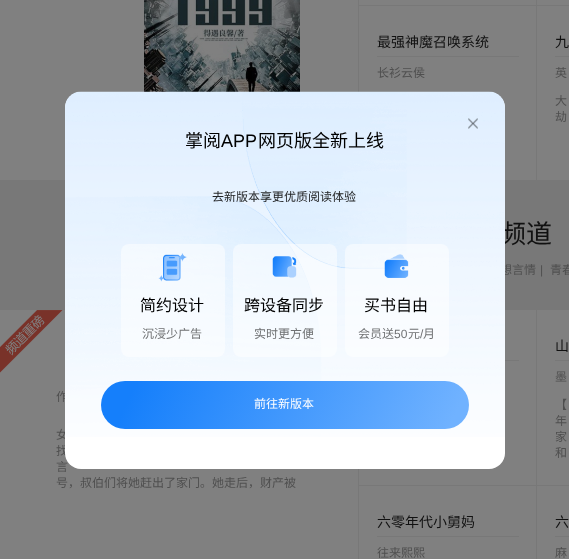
<svg xmlns="http://www.w3.org/2000/svg" width="569" height="559">
	<defs>
		<linearGradient id="g1" gradientUnits="userSpaceOnUse" x1="123" y1="332" x2="447" y2="477"><stop offset="0.09" stop-color="#157FFB" /><stop offset="0.95" stop-color="#70B2FF" /></linearGradient>
	</defs>
	<rect width="100%" height="100%" fill="#787878" />
	<rect x="0" y="0" width="569" height="180" fill="#808080" />
	<image x="144" y="0" width="156" height="92" href="assets/img1.png" />
	<rect x="358" y="0" width="1" height="92" fill="#787878" />
	<rect x="536" y="0" width="1" height="181" fill="#787878" />
	<rect x="359" y="5" width="210" height="1" fill="#787878" />
	<rect x="377" y="56" width="142" height="1" fill="#787878" />
	<text x="377" y="47" font-family="Noto Sans CJK SC" font-size="14" fill="#111111">最强神魔召唤系统</text>
	<text x="377" y="77" font-family="Noto Sans CJK SC" font-size="12" fill="#4F4F4F">长衫云侯</text>
	<rect x="555" y="56" width="14" height="1" fill="#787878" />
	<text x="555" y="47" font-family="Noto Sans CJK SC" font-size="14" fill="#111111">九</text>
	<g font-family="Noto Sans CJK SC" font-size="12" fill="#4F4F4F">
		<text x="555" y="77">英</text>
		<text x="555" y="105">大</text>
		<text x="555" y="121">劫</text>
	</g>
	<text x="500" y="243" font-family="Noto Sans CJK SC" font-size="26" fill="#111111">频道</text>
	<text x="500" y="274" font-family="Noto Sans CJK SC" font-size="12" fill="#4F4F4F">想言情</text>
	<text x="540" y="274" font-family="Liberation Sans" font-size="12" fill="#4F4F4F">|</text>
	<text x="550" y="274" font-family="Noto Sans CJK SC" font-size="12" fill="#4F4F4F">青春</text>
	<rect x="0" y="310" width="569" height="249" fill="#808080" />
	<image x="0" y="310" width="63" height="63" href="assets/img2.png" />
	<g font-family="Noto Sans CJK SC" font-size="12" fill="#4F4F4F">
		<text x="56" y="401">作</text>
		<text x="56" y="439">女</text>
		<text x="56" y="455">找</text>
		<text x="56" y="471">言</text>
		<text x="56" y="487">号，叔伯们将她赶出了家门。她走后，财产被</text>
	</g>
	<rect x="358" y="469" width="1" height="90" fill="#787878" />
	<rect x="536" y="310" width="1" height="249" fill="#787878" />
	<rect x="359" y="485" width="210" height="1" fill="#787878" />
	<rect x="505" y="360" width="14" height="1" fill="#787878" />
	<rect x="555" y="360" width="14" height="1" fill="#787878" />
	<text x="555" y="351" font-family="Noto Sans CJK SC" font-size="14" fill="#111111">山</text>
	<g font-family="Noto Sans CJK SC" font-size="12" fill="#4F4F4F">
		<text x="555" y="381">墨</text>
		<text x="555" y="409">【</text>
		<text x="555" y="425">年</text>
		<text x="555" y="441">家</text>
		<text x="555" y="457">和</text>
	</g>
	<rect x="377" y="536" width="142" height="1" fill="#787878" />
	<text x="377" y="527" font-family="Noto Sans CJK SC" font-size="14" fill="#111111">六零年代小舅妈</text>
	<text x="377" y="557" font-family="Noto Sans CJK SC" font-size="12" fill="#4F4F4F">往来熙熙</text>
	<rect x="555" y="536" width="14" height="1" fill="#787878" />
	<text x="555" y="527" font-family="Noto Sans CJK SC" font-size="14" fill="#111111">六</text>
	<text x="555" y="557" font-family="Noto Sans CJK SC" font-size="12" fill="#4F4F4F">麻</text>
	<rect x="65" y="92" width="440" height="377" rx="16" fill="#FFFFFF" />
	<image x="65" y="91" width="440" height="346" href="assets/img3.png" />
	<image x="468" y="118" width="10" height="11" href="assets/img4.png" />
	<text x="185" y="147" font-family="Noto Sans CJK SC" font-size="18" fill="#000000">掌阅</text>
	<text x="221" y="147" font-family="Liberation Sans" font-size="18" fill="#000000">APP</text>
	<text x="258" y="147" font-family="Noto Sans CJK SC" font-size="18" fill="#000000">网页版全新上线</text>
	<text x="212" y="201" font-family="Noto Sans CJK SC" font-size="12" fill="#222426">去新版本享更优质阅读体验</text>
	<rect x="121" y="244" width="104" height="113" rx="8" fill="#FFFFFF" fill-opacity="0.5" />
	<image x="158" y="253" width="29" height="29" href="assets/img5.png" />
	<text x="140" y="311" font-family="Noto Sans CJK SC" font-size="16" fill="#000000">简约设计</text>
	<text x="142" y="338" font-family="Noto Sans CJK SC" font-size="12" fill="#6F7173">沉浸少广告</text>
	<rect x="233" y="244" width="104" height="113" rx="8" fill="#FFFFFF" fill-opacity="0.5" />
	<image x="272" y="256" width="25" height="22" href="assets/img6.png" />
	<text x="244" y="311" font-family="Noto Sans CJK SC" font-size="16" fill="#000000">跨设备同步</text>
	<text x="254" y="338" font-family="Noto Sans CJK SC" font-size="12" fill="#6F7173">实时更方便</text>
	<rect x="345" y="244" width="104" height="113" rx="8" fill="#FFFFFF" fill-opacity="0.5" />
	<image x="384" y="254" width="25" height="24" href="assets/img7.png" />
	<text x="364" y="311" font-family="Noto Sans CJK SC" font-size="16" fill="#000000">买书自由</text>
	<text x="358" y="338" font-family="Noto Sans CJK SC" font-size="12" fill="#6F7173">会员送</text>
	<text x="394" y="338" font-family="Liberation Sans" font-size="12" fill="#6F7173">50</text>
	<text x="408" y="338" font-family="Noto Sans CJK SC" font-size="12" fill="#6F7173">元</text>
	<text x="420" y="338" font-family="Liberation Sans" font-size="12" fill="#6F7173">/</text>
	<text x="423" y="338" font-family="Noto Sans CJK SC" font-size="12" fill="#6F7173">月</text>
	<rect x="101" y="381" width="368" height="48" rx="24" fill="url(#g1)" />
	<text x="254" y="408" font-family="Noto Sans CJK SC" font-size="12" fill="#FFFFFF">前往新版本</text>
</svg>
